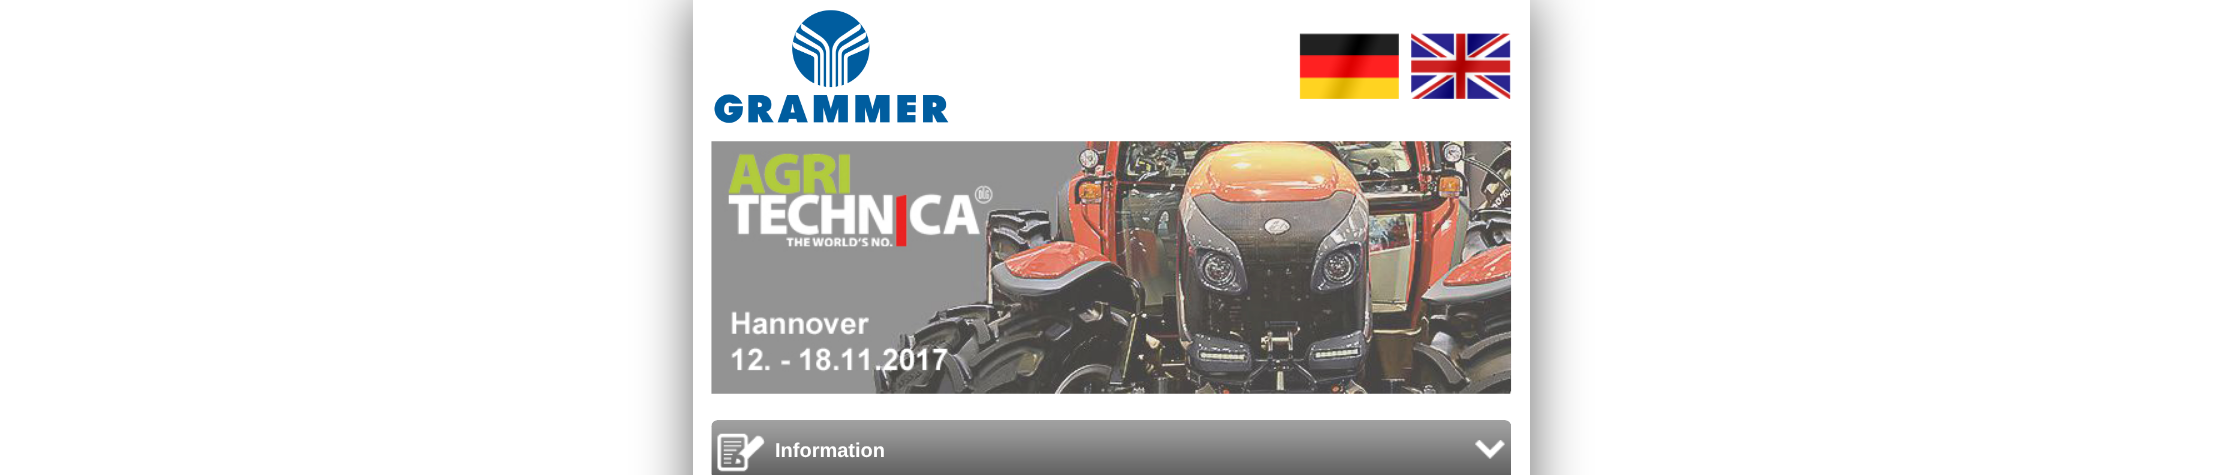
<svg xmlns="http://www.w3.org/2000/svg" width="2222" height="475">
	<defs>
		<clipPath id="clip1"><path d="M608 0H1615V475H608ZM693 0H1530V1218H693Z" clip-rule="evenodd" /></clipPath>
	</defs>
	<rect width="100%" height="100%" fill="#FFFFFF" />
	<g clip-path="url(#clip1)">
		<rect x="693" y="0" width="837" height="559" fill="#000000" fill-opacity="0.6" filter="blur(28px)" />
	</g>
	<image x="714" y="10" width="235" height="113" href="assets/img1.png" />
	<image x="1299" y="33" width="100" height="66" href="assets/img2.png" />
	<image x="1411" y="33" width="100" height="66" href="assets/img3.png" />
	<image x="711" y="141" width="801" height="253" href="assets/img4.png" />
	<image x="711" y="420" width="800" height="55" href="assets/img5.png" />
	<image x="717" y="433" width="48" height="39" href="assets/img6.png" />
	<text x="775" y="457" font-family="Liberation Sans" font-size="20" font-weight="700" fill="#FFFFFF">Information</text>
	<image x="1475" y="440" width="30" height="19" href="assets/img7.png" />
</svg>
